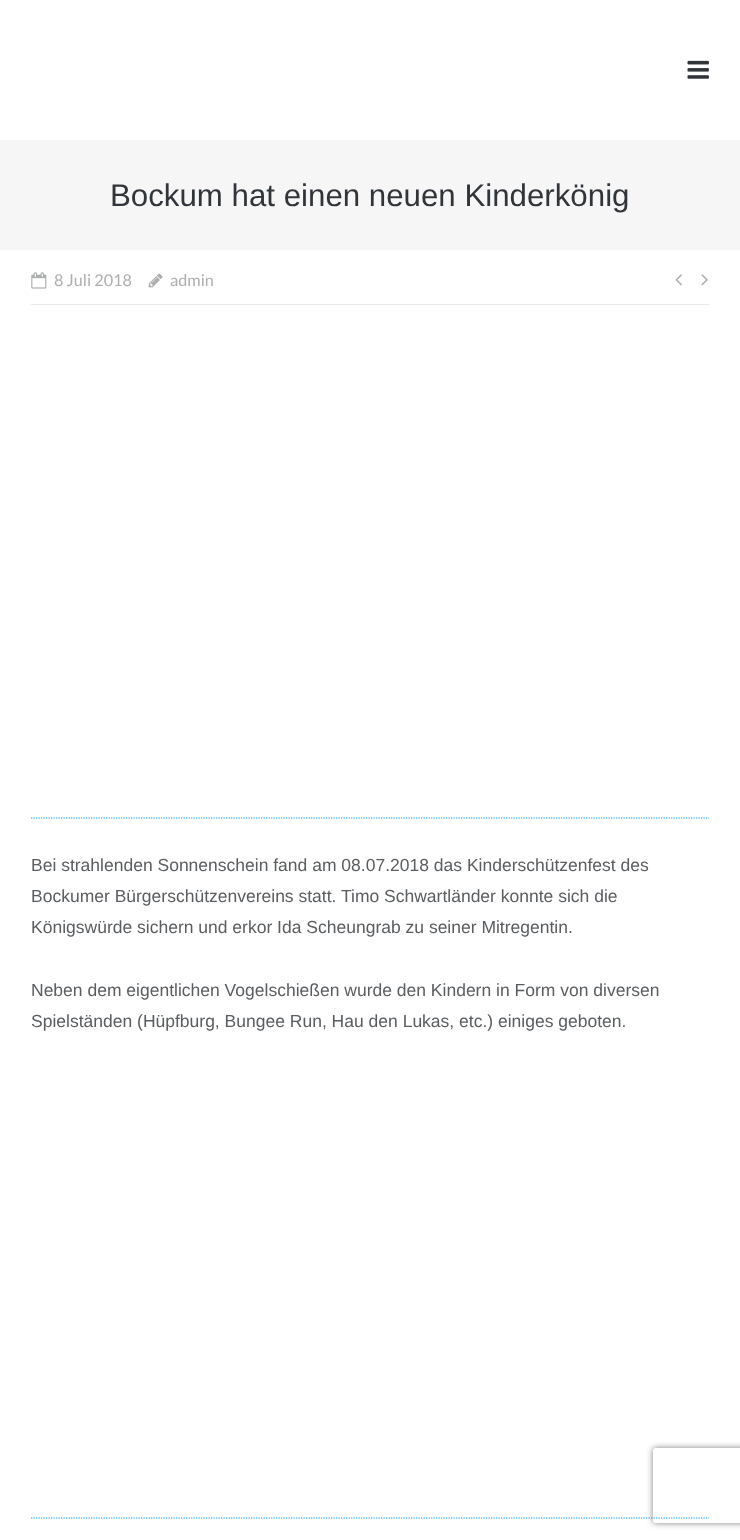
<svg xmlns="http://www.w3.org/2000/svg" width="740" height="1540">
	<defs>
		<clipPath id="clip1"><path d="M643 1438H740V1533H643ZM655.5 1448H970.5C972 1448 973 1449 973 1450.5V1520.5C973 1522 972 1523 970.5 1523H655.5C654 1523 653 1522 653 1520.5V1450.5C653 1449 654 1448 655.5 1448Z" clip-rule="evenodd" /></clipPath>
	</defs>
	<rect width="100%" height="100%" fill="#FFFFFF" />
	<image x="687" y="60" width="22" height="19" href="assets/img1.png" />
	<rect x="0" y="140" width="740" height="110" fill="#F6F6F7" />
	<text x="110" y="206" font-family="Liberation Sans" font-size="31.25" fill="#313539">Bockum hat einen neuen Kinderkönig</text>
	<rect x="31" y="304" width="678" height="1" fill="#EAEAEB" />
	<image x="31" y="272" width="16" height="17" href="assets/img2.png" />
	<text x="54" y="286" font-family="Lato" font-size="16.25" fill="#ACAEAF">8 Juli 2018</text>
	<image x="148" y="273" width="15" height="15" href="assets/img3.png" />
	<text x="170" y="286" font-family="Lato" font-size="16.25" fill="#ACAEAF">admin</text>
	<image x="675" y="274" width="7" height="12" href="assets/img4.png" />
	<image x="701" y="274" width="7" height="12" href="assets/img5.png" />
	<path d="M31 818H709" fill="none" stroke="#0896FE" stroke-width="1.2" stroke-dasharray="1.25 1.25" />
	<g font-family="Liberation Sans" font-size="17.5" fill="#5A5D60">
		<text x="31" y="871">Bei strahlenden Sonnenschein fand am 08.07.2018 das Kinderschützenfest des</text>
		<text x="31" y="902">Bockumer Bürgerschützenvereins statt. Timo Schwartländer konnte sich die</text>
		<text x="31" y="933">Königswürde sichern und erkor Ida Scheungrab zu seiner Mitregentin.</text>
		<text x="31" y="996">Neben dem eigentlichen Vogelschießen wurde den Kindern in Form von diversen</text>
		<text x="31" y="1027">Spielständen (Hüpfburg, Bungee Run, Hau den Lukas, etc.) einiges geboten.</text>
	</g>
	<path d="M31 1518H709" fill="none" stroke="#0896FE" stroke-width="1.2" stroke-dasharray="1.25 1.25" />
	<g clip-path="url(#clip1)">
		<rect x="653" y="1448" width="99" height="75" rx="2.5" fill="#808080" filter="blur(3px)" />
	</g>
</svg>
